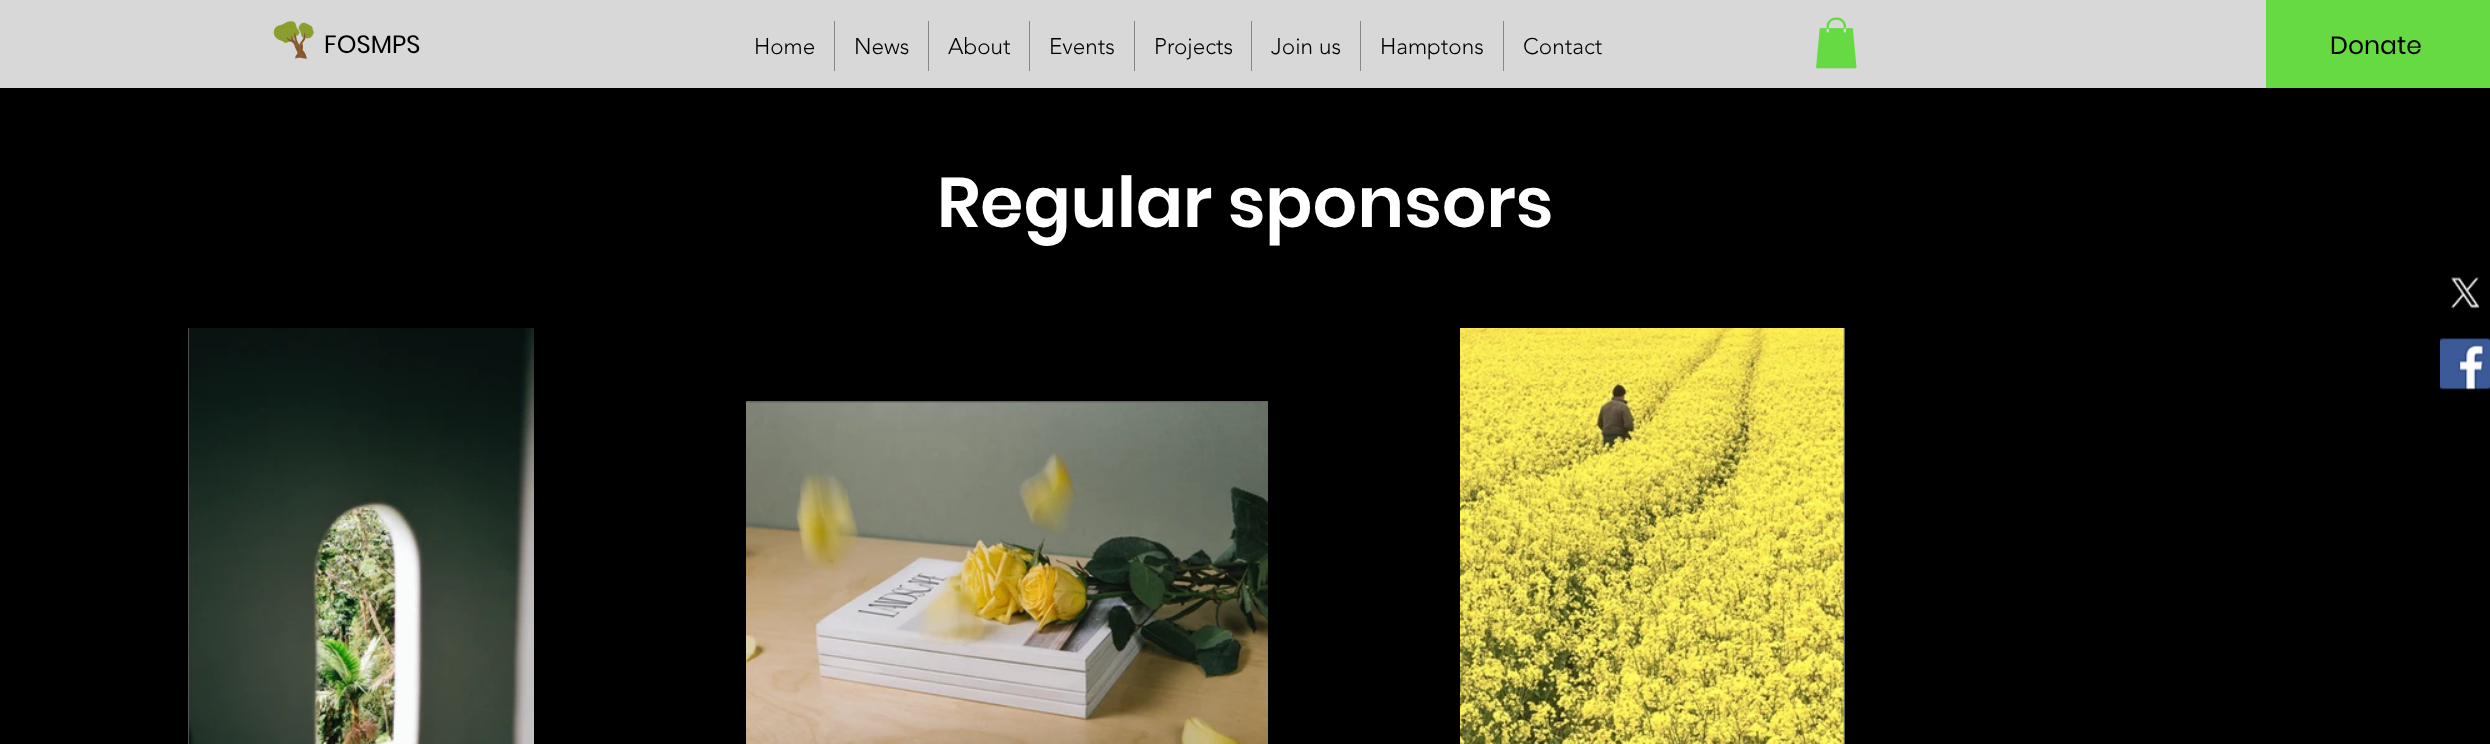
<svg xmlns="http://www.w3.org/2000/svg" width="2490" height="744">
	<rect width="100%" height="100%" fill="#000000" />
	<rect x="0" y="0" width="2266" height="88" fill="#D8D8D8" />
	<image x="1816" y="17" width="41" height="52" href="assets/img1.png" />
	<image x="273" y="21" width="41" height="38" href="assets/img2.png" />
	<text x="324" y="53" font-family="Poppins" font-size="25" fill="#000000">FOSMPS</text>
	<text x="754" y="54" font-family="'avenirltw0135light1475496'" font-size="22.5" font-weight="300" fill="#000000">Home</text>
	<rect x="834" y="21" width="1" height="50" fill="#888888" />
	<text x="854" y="54" font-family="'avenirltw0135light1475496'" font-size="22.5" font-weight="300" fill="#000000">News</text>
	<rect x="928" y="21" width="1" height="50" fill="#888888" />
	<text x="948" y="54" font-family="'avenirltw0135light1475496'" font-size="22.5" font-weight="300" fill="#000000">About</text>
	<rect x="1029" y="21" width="1" height="50" fill="#888888" />
	<text x="1049" y="54" font-family="'avenirltw0135light1475496'" font-size="22.5" font-weight="300" fill="#000000">Events</text>
	<rect x="1134" y="21" width="1" height="50" fill="#888888" />
	<text x="1154" y="54" font-family="'avenirltw0135light1475496'" font-size="22.5" font-weight="300" fill="#000000">Projects</text>
	<rect x="1251" y="21" width="1" height="50" fill="#888888" />
	<text x="1271" y="54" font-family="'avenirltw0135light1475496'" font-size="22.5" font-weight="300" fill="#000000">Join us</text>
	<rect x="1360" y="21" width="1" height="50" fill="#888888" />
	<text x="1380" y="54" font-family="'avenirltw0135light1475496'" font-size="22.5" font-weight="300" fill="#000000">Hamptons</text>
	<rect x="1503" y="21" width="1" height="50" fill="#888888" />
	<text x="1523" y="54" font-family="'avenirltw0135light1475496'" font-size="22.5" font-weight="300" fill="#000000">Contact</text>
	<rect x="2266" y="0" width="224" height="88" fill="#66DA43" />
	<text x="2330" y="54" font-family="Poppins" font-size="25" fill="#000000">Donate</text>
	<text x="937" y="227" font-family="Poppins" font-size="70" font-weight="600" fill="#FFFFFF">Regular sponsors</text>
	<rect x="188" y="328" width="1" height="416" fill="#666666" />
	<image x="188" y="328" width="346" height="416" href="assets/img3.png" />
	<rect x="746" y="401" width="522" height="2" fill="#666666" />
	<image x="746" y="402" width="522" height="342" href="assets/img4.png" />
	<rect x="1843" y="328" width="2" height="416" fill="#666666" />
	<image x="1460" y="328" width="384" height="416" href="assets/img5.png" />
	<image x="2451" y="277" width="29" height="32" href="assets/img6.png" />
	<image x="2440" y="338" width="50" height="52" href="assets/img7.png" />
</svg>
